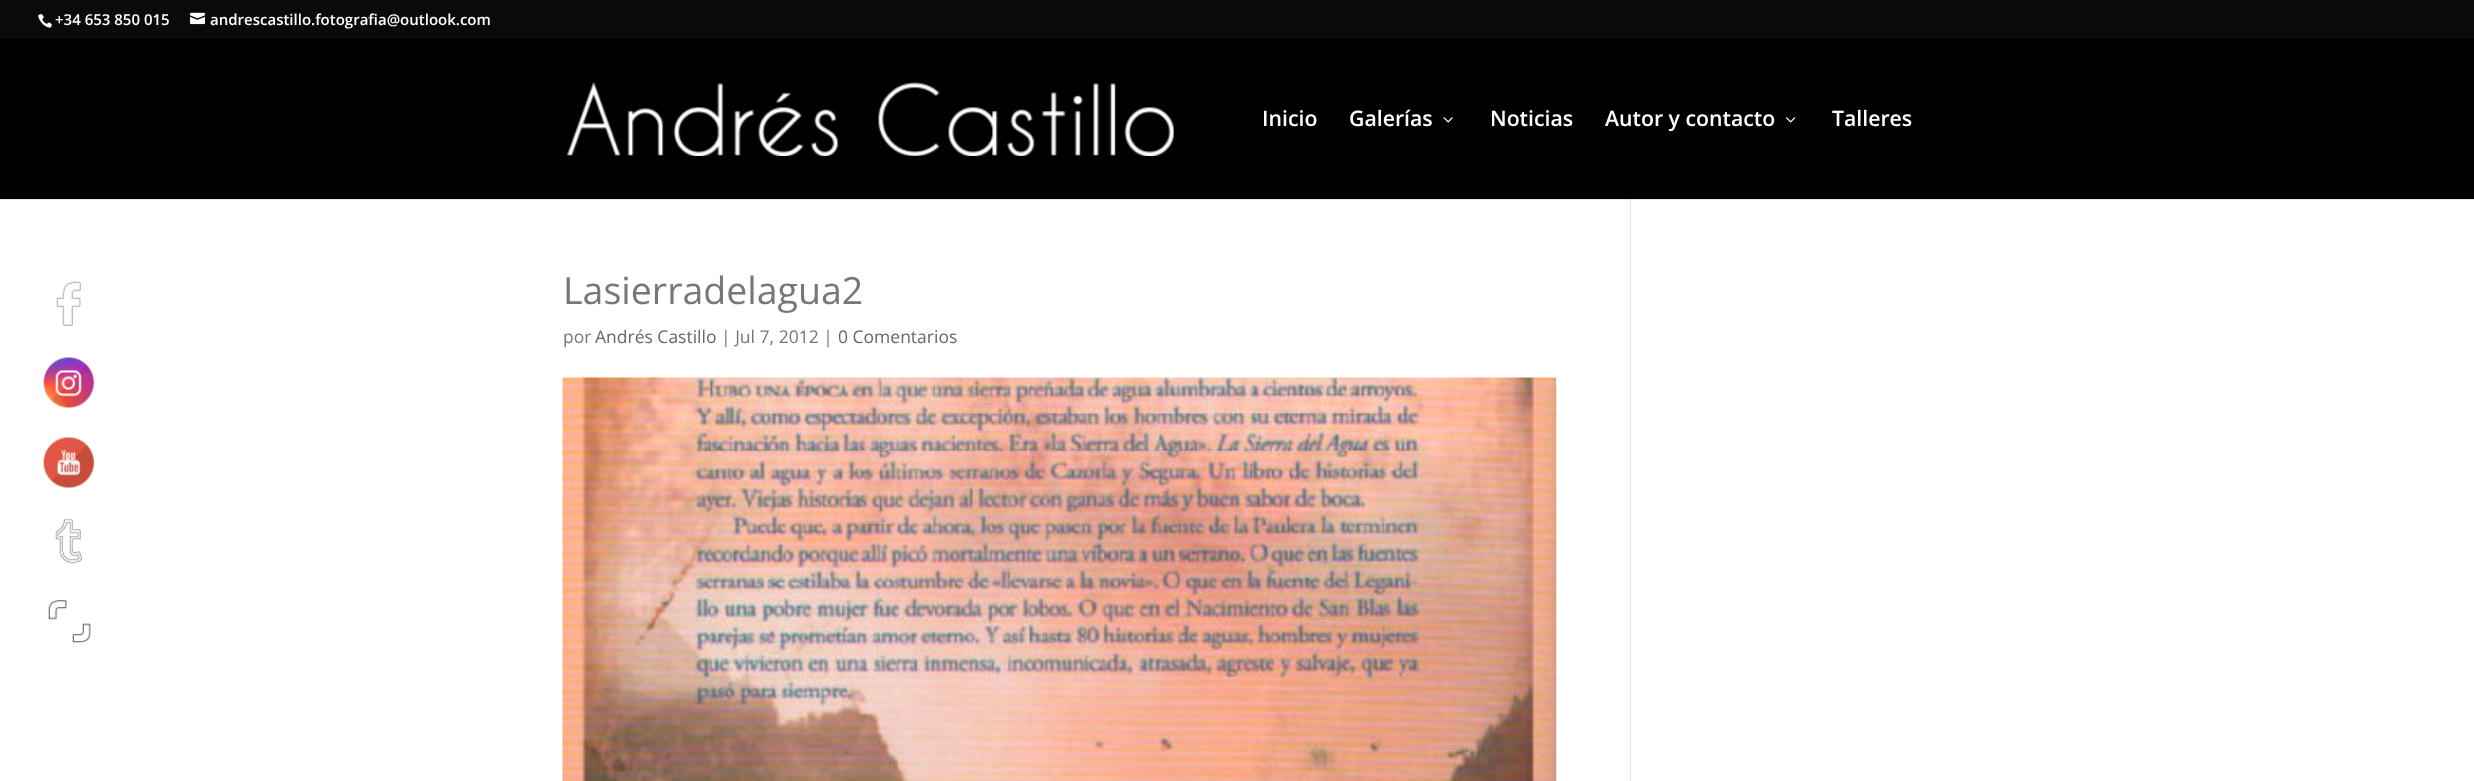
<svg xmlns="http://www.w3.org/2000/svg" width="2474" height="781">
	<rect width="100%" height="100%" fill="#0A0A0A" />
	<image x="38" y="14" width="14" height="14" href="assets/img1.png" />
	<text x="55" y="25" font-family="Open Sans" font-size="15" font-weight="600" fill="#FFFFFF">+34 653 850 015</text>
	<image x="190" y="12" width="15" height="13" href="assets/img2.png" />
	<text x="210" y="25" font-family="Open Sans" font-size="15" font-weight="600" fill="#FFFFFF">andrescastillo.fotografia@outlook.com</text>
	<rect x="0" y="39" width="2474" height="160" fill="#000000" />
	<image x="567" y="82" width="607" height="74" href="assets/img3.png" />
	<g font-family="Open Sans" font-size="21.25" font-weight="600" fill="#FFFFFF">
		<text x="1262" y="126">Inicio</text>
		<text x="1349" y="126">Galerías</text>
	</g>
	<image x="1443" y="117" width="10" height="6" href="assets/img4.png" />
	<g font-family="Open Sans" font-size="21.25" font-weight="600" fill="#FFFFFF">
		<text x="1490" y="126">Noticias</text>
		<text x="1605" y="126">Autor y contacto</text>
	</g>
	<image x="1786" y="117" width="10" height="6" href="assets/img5.png" />
	<text x="1832" y="126" font-family="Open Sans" font-size="21.25" font-weight="600" fill="#FFFFFF">Talleres</text>
	<rect x="0" y="200" width="2474" height="581" fill="#FFFFFF" />
	<rect x="0" y="199" width="2474" height="1" fill="#E6E6E6" />
	<text x="563" y="304" font-family="Open Sans" font-size="37.5" fill="#777777">Lasierradelagua2</text>
	<text x="563" y="343" font-family="Open Sans" font-size="17.5" fill="#777777">por</text>
	<text x="595" y="343" font-family="Open Sans" font-size="17.5" fill="#666666">Andrés Castillo</text>
	<text x="721" y="343" font-family="Open Sans" font-size="17.5" fill="#777777">| Jul 7, 2012 |</text>
	<text x="838" y="343" font-family="Open Sans" font-size="17.5" fill="#666666">0 Comentarios</text>
	<image x="562" y="377" width="995" height="404" href="assets/img6.png" />
	<rect x="1630" y="199" width="1" height="582" fill="#E2E2E2" />
	<rect x="1630" y="199" width="1" height="1" fill="#CBCBCB" />
	<image x="56" y="281" width="25" height="45" href="assets/img7.png" />
	<image x="43" y="357" width="51" height="51" href="assets/img8.png" />
	<image x="43" y="437" width="51" height="51" href="assets/img9.png" />
	<image x="55" y="519" width="27" height="45" href="assets/img10.png" />
	<image x="48" y="600" width="43" height="43" href="assets/img11.png" />
</svg>
